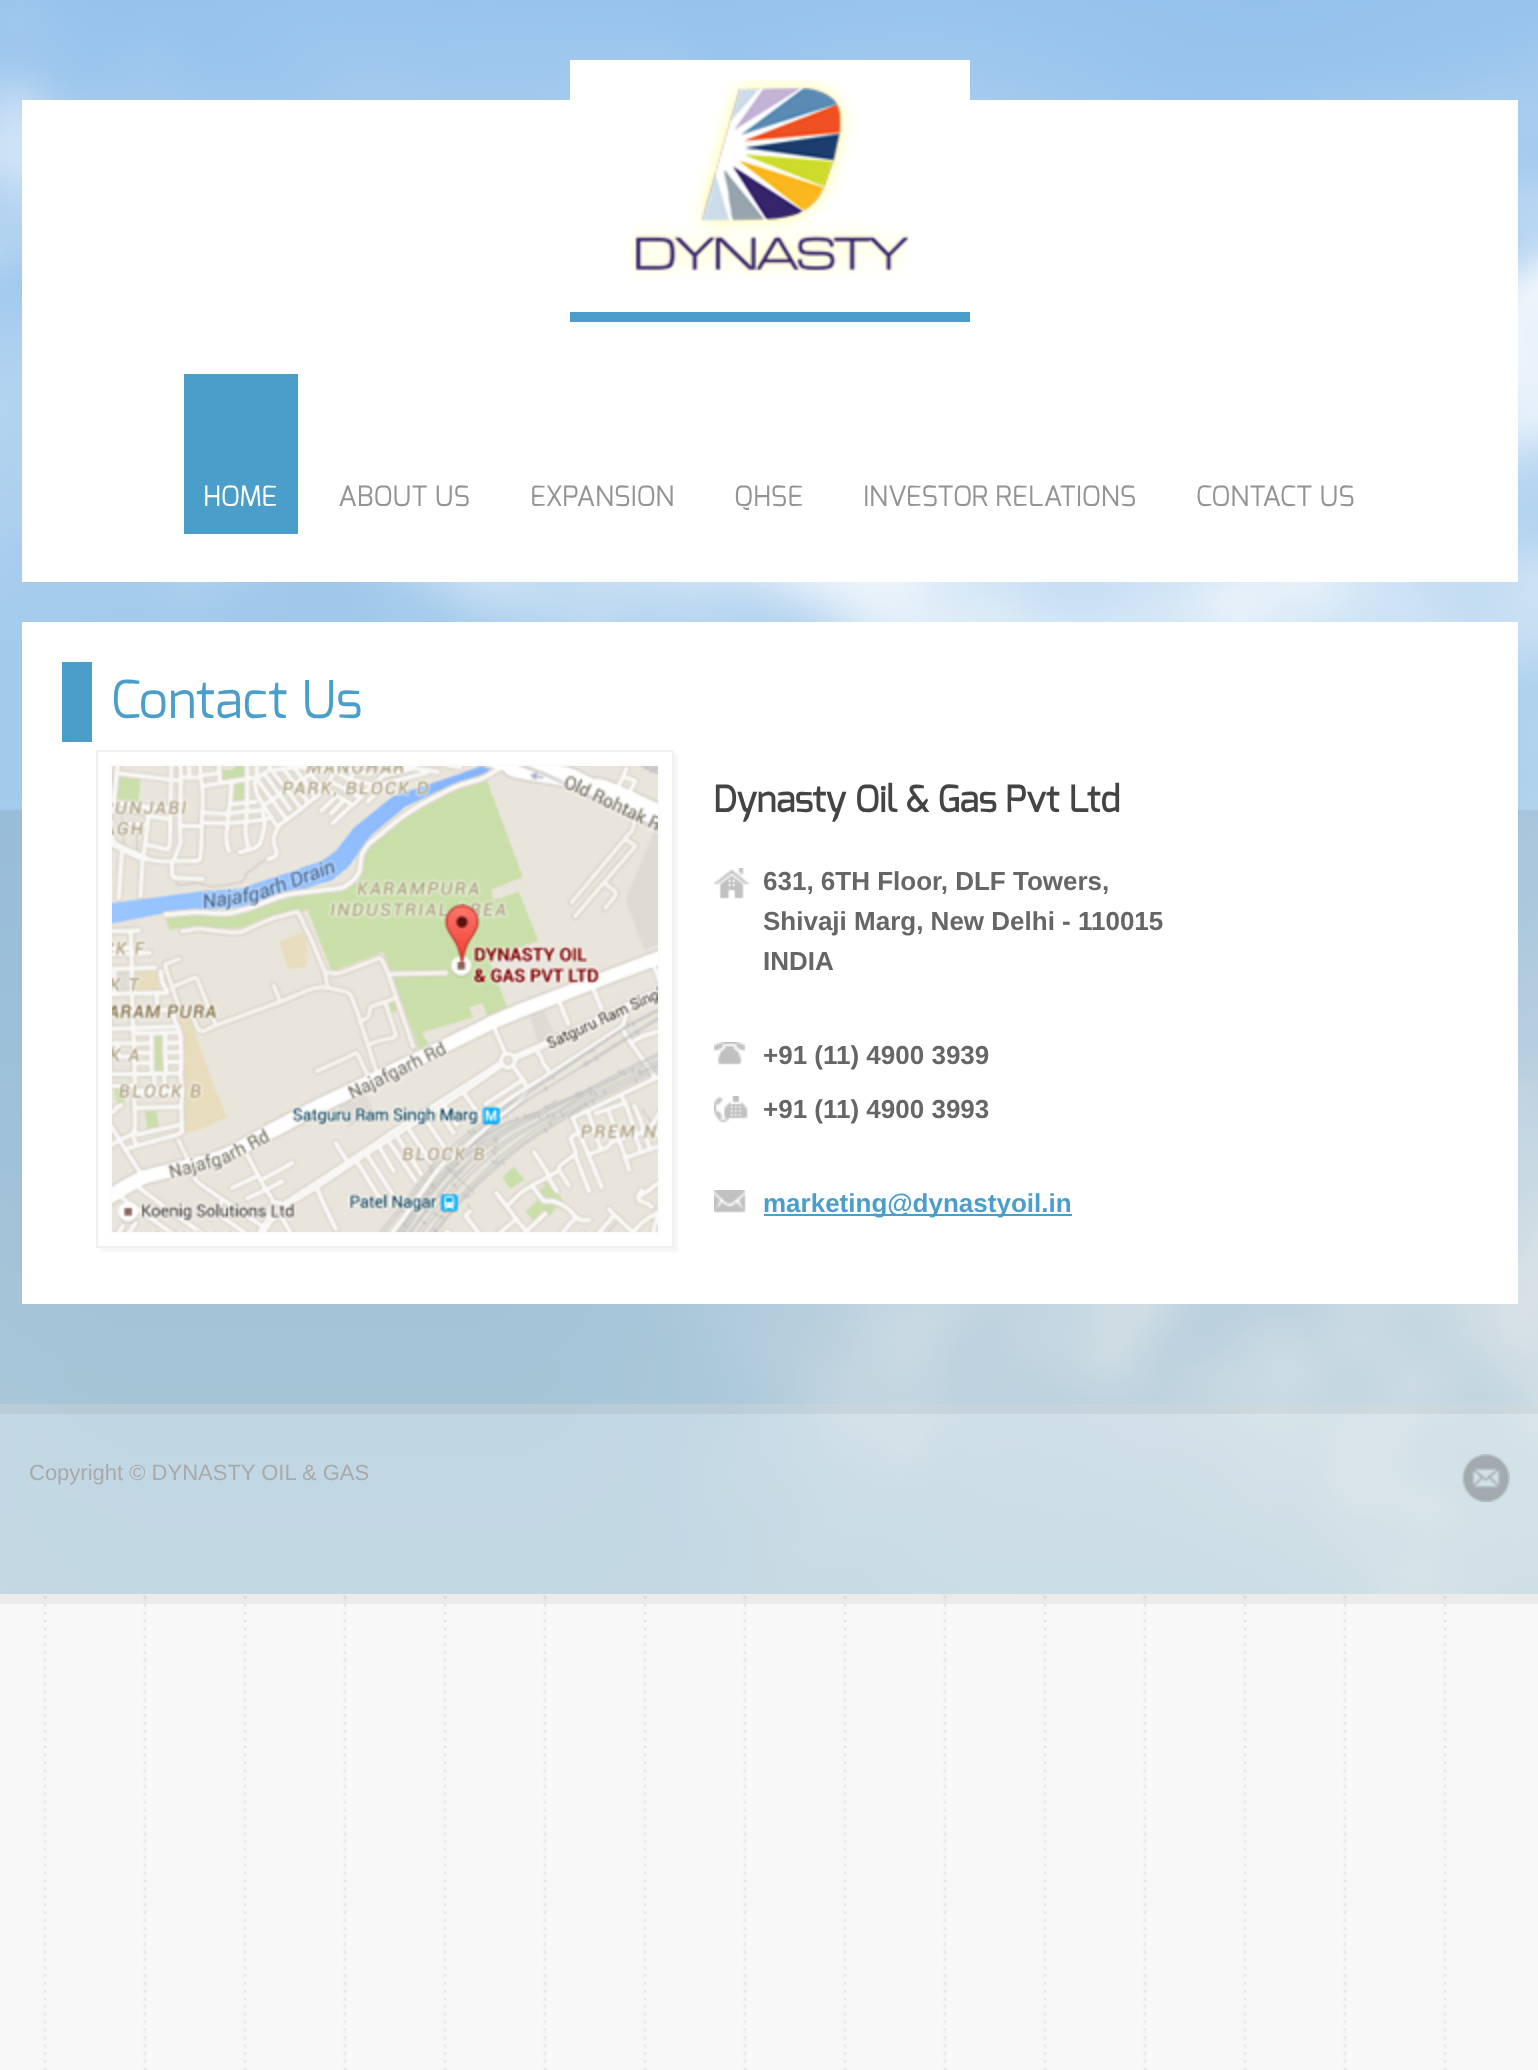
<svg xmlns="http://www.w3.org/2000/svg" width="1538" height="2070">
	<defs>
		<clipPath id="clip1"><path d="M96 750H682V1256H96ZM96 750H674V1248H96Z" clip-rule="evenodd" /></clipPath>
	</defs>
	<rect width="100%" height="100%" fill="#FFFFFF" />
	<image x="0" y="1594" width="1538" height="476" href="assets/img1.png" />
	<image x="0" y="0" width="1538" height="1594" href="assets/img2.png" />
	<rect x="22" y="100" width="1496" height="482" fill="#FFFFFF" />
	<rect x="570" y="312" width="400" height="10" fill="#4B9EC9" />
	<rect x="570" y="60" width="400" height="40" fill="#FFFFFF" />
	<image x="630" y="80" width="280" height="200" href="assets/img3.png" />
	<rect x="184" y="374" width="114" height="160" fill="#4B9EC9" />
	<text x="203" y="506" font-family="Exo" font-size="28" fill="#FFFFFF">HOME</text>
	<g font-family="Exo" font-size="28" fill="#949494">
		<text x="338" y="506">ABOUT US</text>
		<text x="530" y="506">EXPANSION</text>
		<text x="734" y="506">QHSE</text>
		<text x="863" y="506">INVESTOR RELATIONS</text>
		<text x="1196" y="506">CONTACT US</text>
	</g>
	<rect x="22" y="622" width="1496" height="682" fill="#FFFFFF" />
	<rect x="62" y="662" width="30" height="80" fill="#4B9EC9" />
	<text x="111" y="718" font-family="Exo" font-size="52" fill="#4B9EC9">Contact Us</text>
	<g clip-path="url(#clip1)">
		<rect x="100" y="754" width="578" height="498" fill="#000000" fill-opacity="0.04" filter="blur(1px)" />
	</g>
	<rect x="97" y="751" width="576" height="496" fill="none" stroke="#F0F0F0" stroke-width="2" />
	<rect x="111" y="765" width="548" height="468" fill="none" stroke="#FBFBFB" stroke-width="2" />
	<image x="112" y="766" width="546" height="466" href="assets/img4.png" />
	<text x="713" y="812" font-family="Exo" font-size="36" font-weight="700" fill="#444444">Dynasty Oil &amp; Gas Pvt Ltd</text>
	<image x="714" y="868" width="36" height="31" href="assets/img5.png" />
	<g font-family="Liberation Sans" font-size="26" font-weight="700" fill="#666666">
		<text x="763" y="890">631, 6TH Floor, DLF Towers,</text>
		<text x="763" y="930">Shivaji Marg, New Delhi - 110015</text>
		<text x="763" y="970">INDIA</text>
	</g>
	<image x="714" y="1042" width="32" height="23" href="assets/img6.png" />
	<text x="763" y="1064" font-family="Liberation Sans" font-size="26" font-weight="700" fill="#666666">+91 (11) 4900 3939</text>
	<image x="714" y="1096" width="34" height="27" href="assets/img7.png" />
	<text x="763" y="1118" font-family="Liberation Sans" font-size="26" font-weight="700" fill="#666666">+91 (11) 4900 3993</text>
	<image x="714" y="1190" width="32" height="23" href="assets/img8.png" />
	<rect x="764" y="1214" width="308" height="2" fill="#4B9EC9" />
	<text x="763" y="1212" font-family="Liberation Sans" font-size="26" font-weight="700" fill="#4B9EC9">marketing@dynastyoil.in</text>
	<rect x="0" y="1594" width="1538" height="10" fill="#000000" fill-opacity="0.05" />
	<rect x="0" y="1404" width="1538" height="190" fill="#FFFFFF" fill-opacity="0.3" />
	<rect x="0" y="1404" width="1538" height="10" fill="#000000" fill-opacity="0.05" />
	<text x="29" y="1480" font-family="Liberation Sans" font-size="22" fill="#A9A9A9">Copyright © DYNASTY OIL &amp; GAS</text>
	<image x="1462" y="1454" width="48" height="48" href="assets/img9.png" />
</svg>
